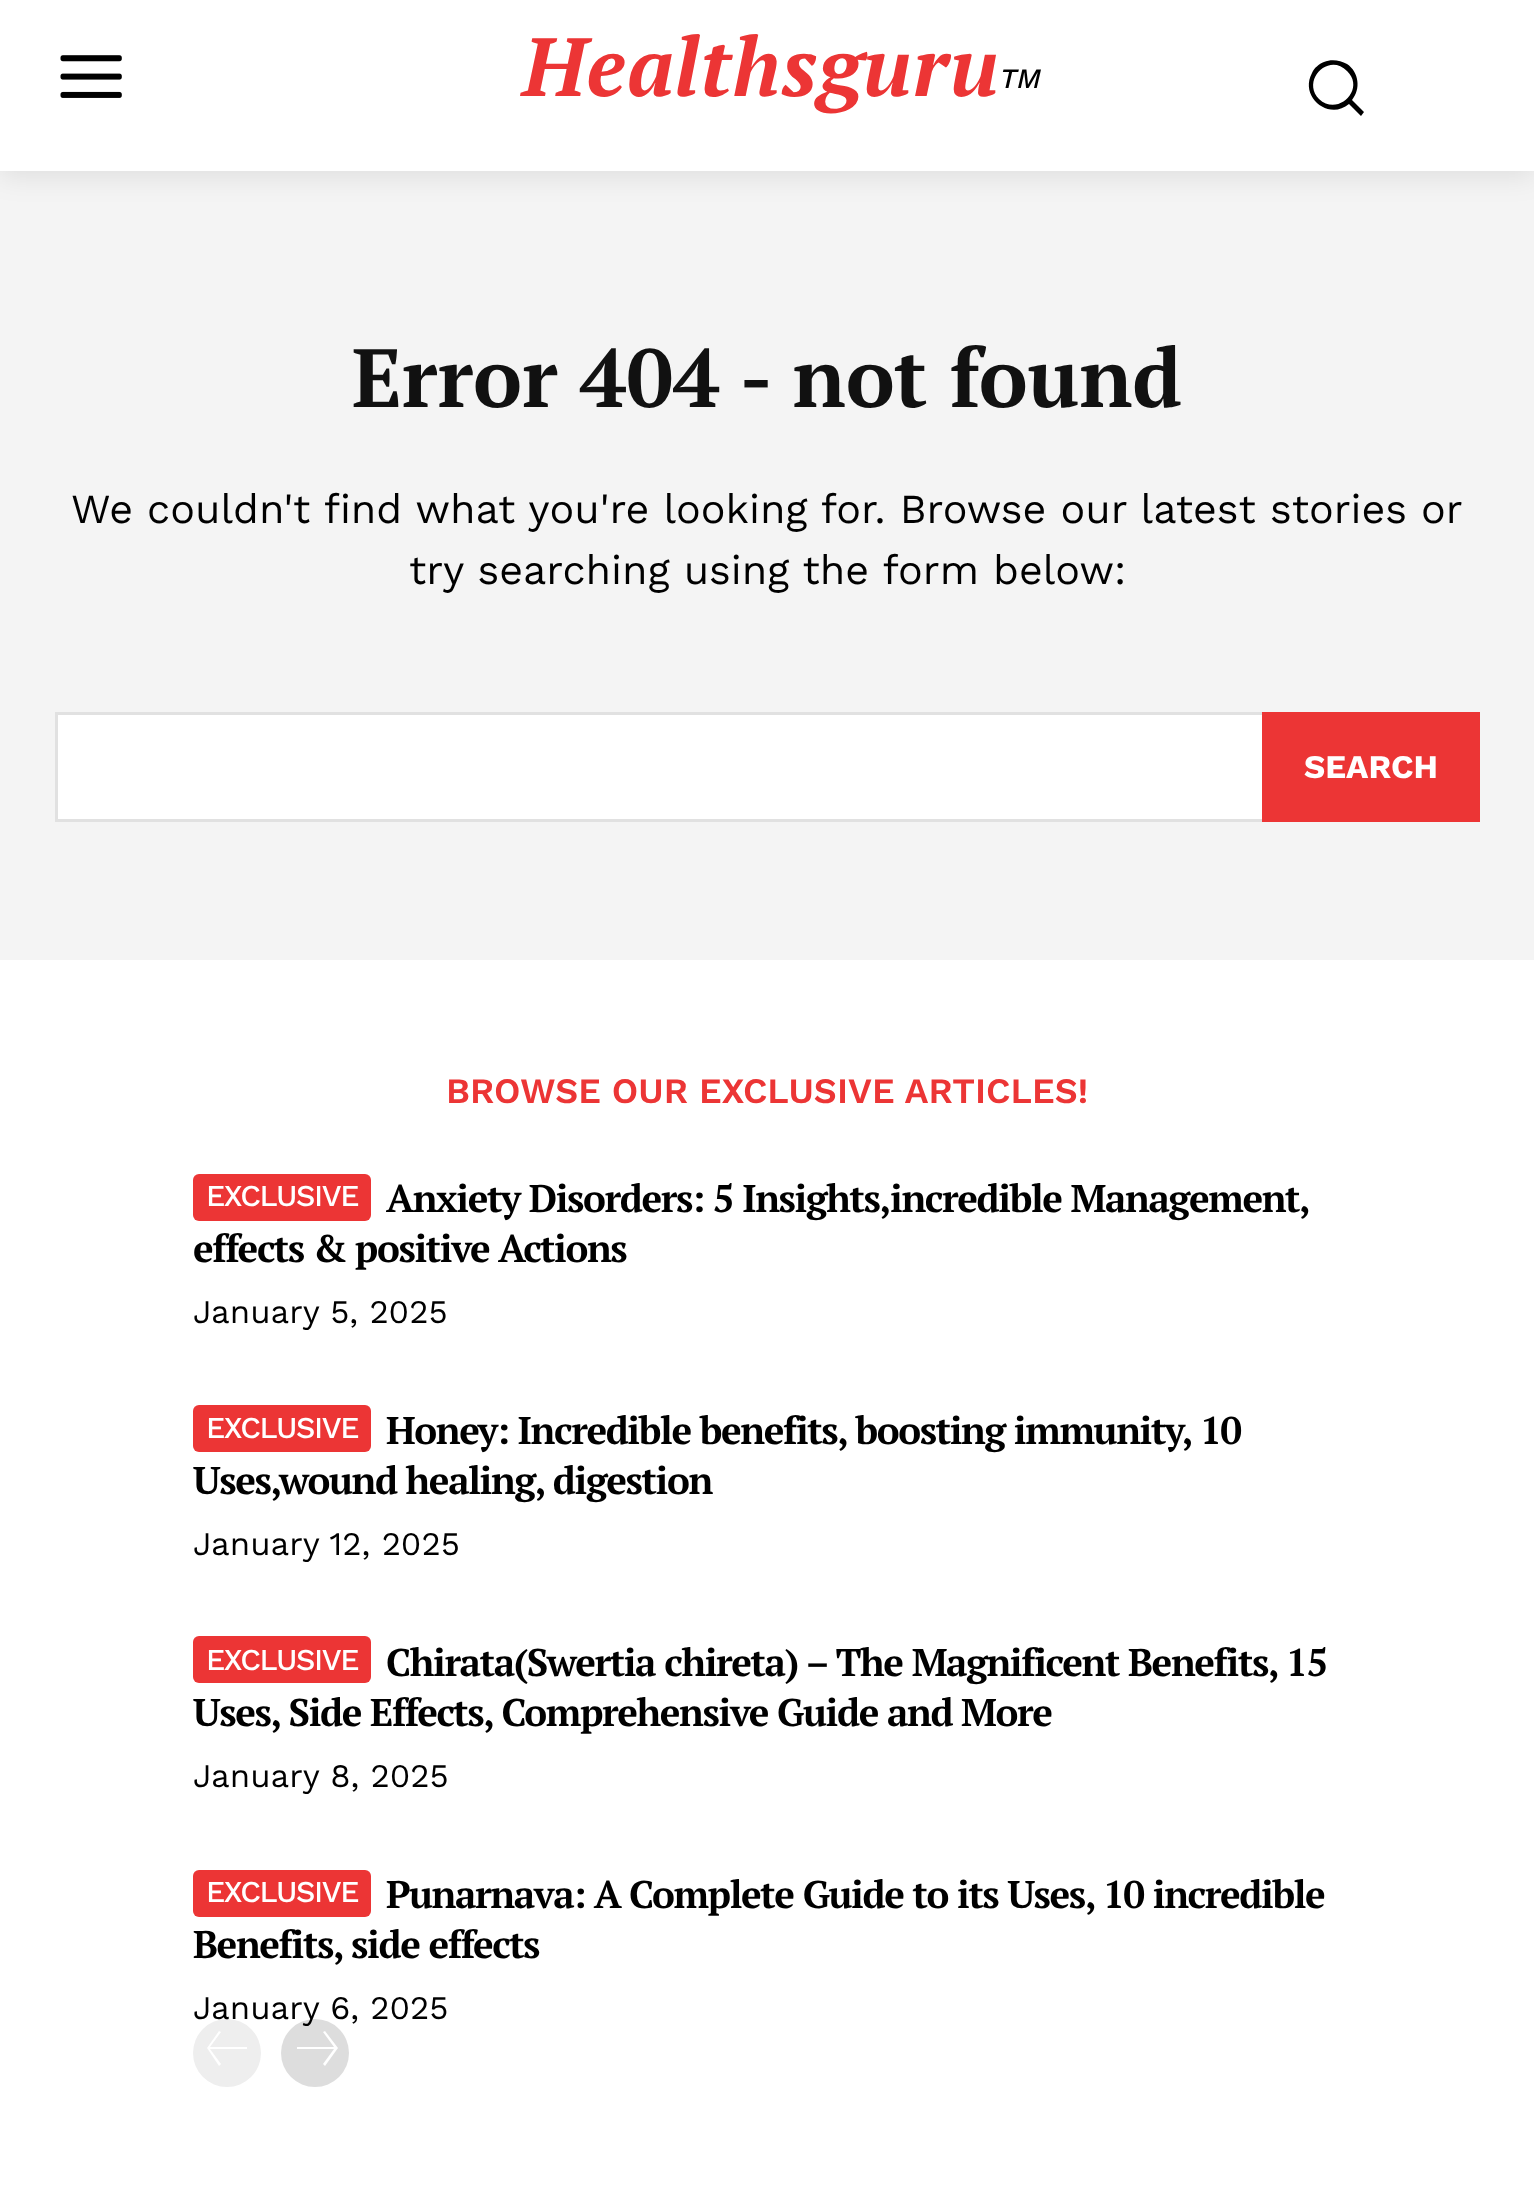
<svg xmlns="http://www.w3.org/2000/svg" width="1534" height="2198">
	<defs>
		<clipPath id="clip1"><path d="M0 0H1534V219H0ZM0 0H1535V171H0Z" clip-rule="evenodd" /></clipPath>
	</defs>
	<rect width="100%" height="100%" fill="#FFFFFF" />
	<image x="60" y="55" width="62" height="43" href="assets/img1.png" />
	<path d="M1364 112L1352 100C1361 89 1359 72 1347 64C1340 60 1331 59 1324 62C1319 64 1314 68 1312 73C1299 97 1329 121 1349 104L1361 116ZM1319 99C1301 80 1329 52 1347 71C1366 89 1338 117 1319 99Z" fill="#000000" />
	<rect x="0" y="171" width="1534" height="789" fill="#F4F4F4" />
	<g clip-path="url(#clip1)">
		<rect x="0" y="6" width="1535" height="170" fill="#000000" fill-opacity="0.09" filter="blur(14px)" />
	</g>
	<text x="522" y="96" font-family="PT Serif" font-size="82.5" font-weight="700" font-style="italic" letter-spacing="1.4" fill="#EC3535">Healthsguru</text>
	<text x="1000" y="88" font-family="Work Sans" font-size="28" font-weight="500" font-style="italic" fill="#000000">TM</text>
	<text x="352" y="407" font-family="PT Serif" font-size="82.5" font-weight="700" fill="#111111">Error 404 - not found</text>
	<g font-family="Work Sans" font-size="41.25" fill="#000000">
		<text x="71" y="523">We couldn't find what you're looking for. Browse our latest stories or</text>
		<text x="409" y="584">try searching using the form below:</text>
	</g>
	<rect x="58" y="715" width="1204" height="104" fill="#FFFFFF" />
	<rect x="56.5" y="713.5" width="1422" height="107" fill="none" stroke="#E1E1E1" stroke-width="3" />
	<rect x="1262" y="712" width="218" height="110" fill="#EC3535" />
	<text x="1304" y="778" font-family="Work Sans" font-size="33" font-weight="700" fill="#FFFFFF">SEARCH</text>
	<text x="446" y="1103" font-family="Work Sans" font-size="35.75" font-weight="600" fill="#EC3535">BROWSE OUR EXCLUSIVE ARTICLES!</text>
	<rect x="193" y="1174" width="178" height="47" rx="6" fill="#EC3535" />
	<text x="206" y="1206" font-family="Work Sans" font-size="30.25" font-weight="500" letter-spacing="-1.38" fill="#FFFFFF">EXCLUSIVE</text>
	<g font-family="PT Serif" font-size="38.5" font-weight="700" letter-spacing="-1.38" fill="#000000">
		<text x="386" y="1212">Anxiety Disorders: 5 Insights,incredible Management,</text>
		<text x="193" y="1262">effects &amp; positive Actions</text>
	</g>
	<text x="193" y="1323" font-family="Work Sans" font-size="33" fill="#000000">January 5, 2025</text>
	<rect x="193" y="1405" width="178" height="47" rx="6" fill="#EC3535" />
	<text x="206" y="1438" font-family="Work Sans" font-size="30.25" font-weight="500" letter-spacing="-1.38" fill="#FFFFFF">EXCLUSIVE</text>
	<g font-family="PT Serif" font-size="38.5" font-weight="700" letter-spacing="-1.38" fill="#000000">
		<text x="386" y="1444">Honey: Incredible benefits, boosting immunity, 10</text>
		<text x="193" y="1494">Uses,wound healing, digestion</text>
	</g>
	<text x="193" y="1555" font-family="Work Sans" font-size="33" fill="#000000">January 12, 2025</text>
	<rect x="193" y="1636" width="178" height="47" rx="6" fill="#EC3535" />
	<text x="206" y="1670" font-family="Work Sans" font-size="30.25" font-weight="500" letter-spacing="-1.38" fill="#FFFFFF">EXCLUSIVE</text>
	<g font-family="PT Serif" font-size="38.5" font-weight="700" letter-spacing="-1.38" fill="#000000">
		<text x="386" y="1676">Chirata(Swertia chireta) – The Magnificent Benefits, 15</text>
		<text x="193" y="1726">Uses, Side Effects, Comprehensive Guide and More</text>
	</g>
	<text x="193" y="1787" font-family="Work Sans" font-size="33" fill="#000000">January 8, 2025</text>
	<rect x="193" y="1870" width="178" height="47" rx="6" fill="#EC3535" />
	<text x="206" y="1902" font-family="Work Sans" font-size="30.25" font-weight="500" letter-spacing="-1.38" fill="#FFFFFF">EXCLUSIVE</text>
	<g font-family="PT Serif" font-size="38.5" font-weight="700" letter-spacing="-1.38" fill="#000000">
		<text x="386" y="1908">Punarnava: A Complete Guide to its Uses, 10 incredible</text>
		<text x="193" y="1958">Benefits, side effects</text>
	</g>
	<circle cx="227" cy="2053" r="34" fill="#EEEEEE" />
	<circle cx="315" cy="2053" r="34" fill="#DDDDDD" />
	<text x="193" y="2019" font-family="Work Sans" font-size="33" fill="#000000">January 6, 2025</text>
	<path d="M221 2064L210 2049H247V2047H210L221 2032L219 2031L207 2048L219 2066Z" fill="#FFFFFF" />
	<path d="M323 2064L325 2066L338 2048L325 2031L323 2032L334 2047H297V2049H334Z" fill="#FFFFFF" />
</svg>
